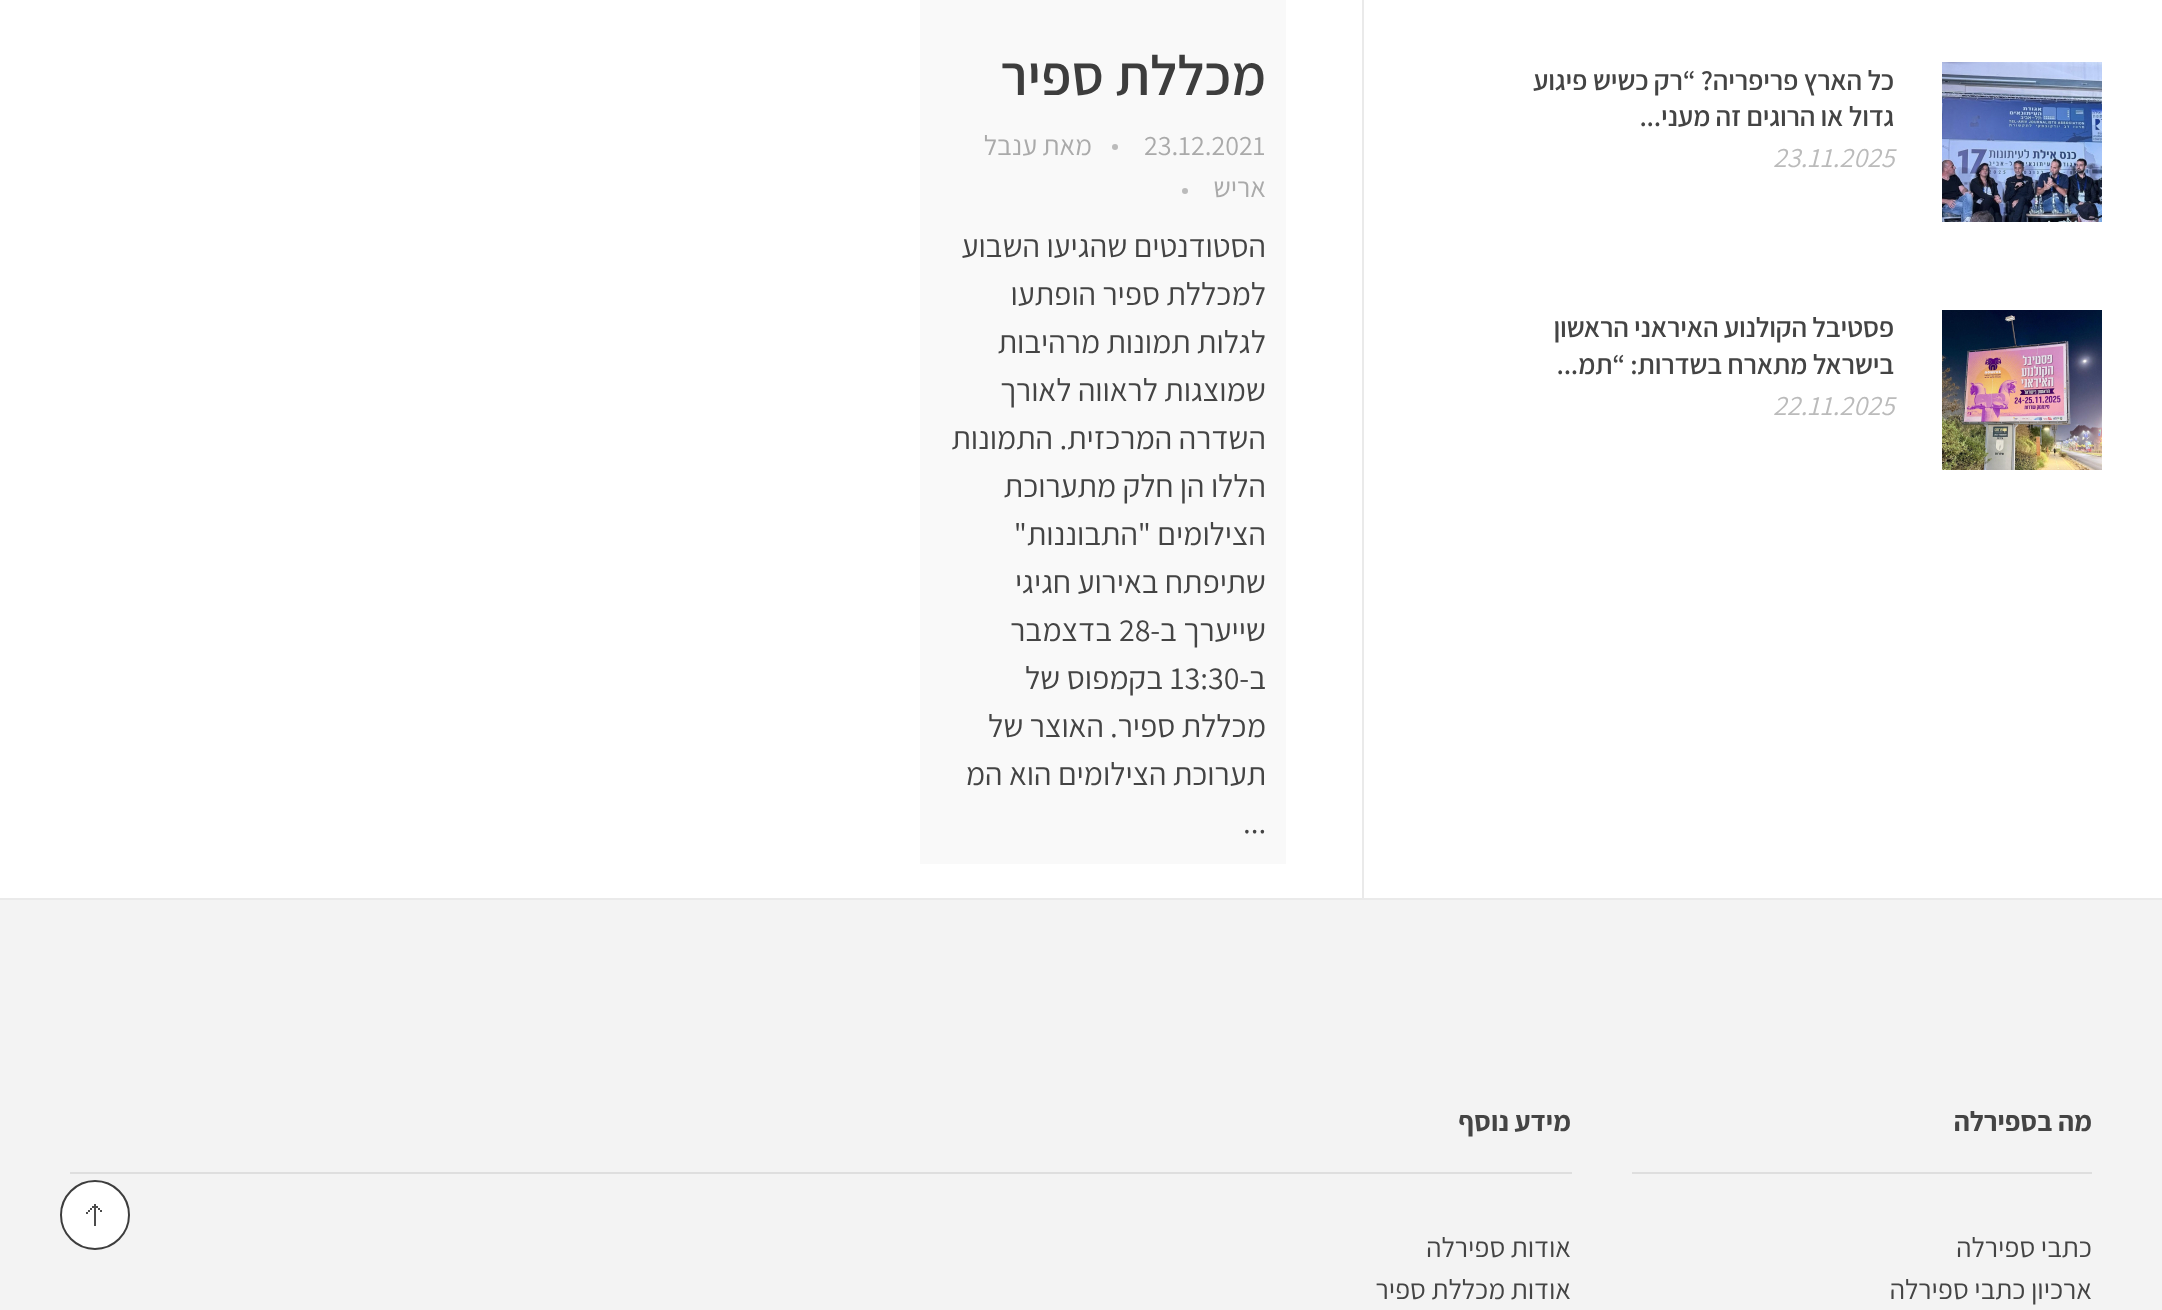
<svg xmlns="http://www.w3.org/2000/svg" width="2162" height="1310">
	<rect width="100%" height="100%" fill="#FFFFFF" />
	<rect x="1362" y="0" width="2" height="898" fill="#EAEAEA" />
	<image x="1942" y="62" width="160" height="160" href="assets/img1.png" />
	<g font-family="Assistant" font-size="28" font-weight="600" letter-spacing="-0.2" direction="rtl" fill="#444444">
		<text x="1894" y="90">כל הארץ פריפריה? “רק כשיש פיגוע</text>
		<text x="1894" y="126">גדול או הרוגים זה מעני...</text>
	</g>
	<text x="1773" y="167" font-family="Assistant" font-size="28" font-style="italic" fill="#BBBBBB">23.11.2025</text>
	<image x="1942" y="310" width="160" height="160" href="assets/img2.png" />
	<g font-family="Assistant" font-size="28" font-weight="600" letter-spacing="-0.2" direction="rtl" fill="#444444">
		<text x="1894" y="337">פסטיבל הקולנוע האיראני הראשון</text>
		<text x="1894" y="374">בישראל מתארח בשדרות: “תמ...</text>
	</g>
	<text x="1773" y="415" font-family="Assistant" font-size="28" font-style="italic" fill="#BBBBBB">22.11.2025</text>
	<rect x="920" y="0" width="366" height="864" fill="#F9F9F9" />
	<text x="1266" y="95" font-family="Assistant" font-size="56" font-weight="600" direction="rtl" fill="#3D3D3D">מכללת ספיר</text>
	<text x="1144" y="155" font-family="Assistant" font-size="28" fill="#AAAAAA">23.12.2021</text>
	<circle cx="1115" cy="147" r="3" fill="#BBBBBB" />
	<g font-family="Assistant" font-size="28" direction="rtl" fill="#AAAAAA">
		<text x="1092" y="155">מאת</text>
		<text x="1037" y="155">ענבל</text>
		<text x="1266" y="197">אריש</text>
	</g>
	<circle cx="1185" cy="191" r="3" fill="#BBBBBB" />
	<g font-family="Assistant" font-size="32" direction="rtl" fill="#444444">
		<text x="1266" y="257">הסטודנטים שהגיעו השבוע</text>
		<text x="1266" y="305">למכללת ספיר הופתעו</text>
		<text x="1266" y="353">לגלות תמונות מרהיבות</text>
		<text x="1266" y="401">שמוצגות לראווה לאורך</text>
		<text x="1266" y="449">השדרה המרכזית. התמונות</text>
		<text x="1266" y="497">הללו הן חלק מתערוכת</text>
		<text x="1266" y="545">הצילומים "התבוננות"</text>
		<text x="1266" y="593">שתיפתח באירוע חגיגי</text>
		<text x="1266" y="641">שייערך ב-</text>
	</g>
	<text x="1119" y="641" font-family="Assistant" font-size="32" fill="#444444">28</text>
	<g font-family="Assistant" font-size="32" direction="rtl" fill="#444444">
		<text x="1112" y="641">בדצמבר</text>
		<text x="1266" y="689">ב-</text>
	</g>
	<text x="1170" y="689" font-family="Assistant" font-size="32" fill="#444444">13:30</text>
	<g font-family="Assistant" font-size="32" direction="rtl" fill="#444444">
		<text x="1163" y="689">בקמפוס של</text>
		<text x="1266" y="737">מכללת ספיר.</text>
		<text x="1104" y="737">האוצר של</text>
		<text x="1266" y="785">תערוכת הצילומים הוא המ</text>
	</g>
	<text x="1243" y="833" font-family="Assistant" font-size="32" fill="#444444">...</text>
	<rect x="0" y="900" width="2162" height="410" fill="#F3F3F3" />
	<rect x="0" y="898" width="2162" height="2" fill="#EAEAEA" />
	<rect x="1632" y="1172" width="460" height="2" fill="#DEDEDE" />
	<text x="2092" y="1131" font-family="Assistant" font-size="28" font-weight="700" direction="rtl" fill="#444444">מה בספירלה</text>
	<g font-family="Assistant" font-size="28" direction="rtl" fill="#444444">
		<text x="2092" y="1257">כתבי ספירלה</text>
		<text x="2092" y="1299">ארכיון כתבי ספירלה</text>
	</g>
	<rect x="70" y="1172" width="1502" height="2" fill="#DEDEDE" />
	<text x="1571" y="1131" font-family="Assistant" font-size="28" font-weight="700" direction="rtl" fill="#444444">מידע נוסף</text>
	<g font-family="Assistant" font-size="28" direction="rtl" fill="#444444">
		<text x="1571" y="1257">אודות ספירלה</text>
		<text x="1571" y="1299">אודות מכללת ספיר</text>
	</g>
	<circle cx="95" cy="1215" r="34" fill="#FFFFFF" stroke="#3D3D3D" stroke-width="2" />
	<image x="86" y="1204" width="16" height="22" href="assets/img3.png" />
</svg>
